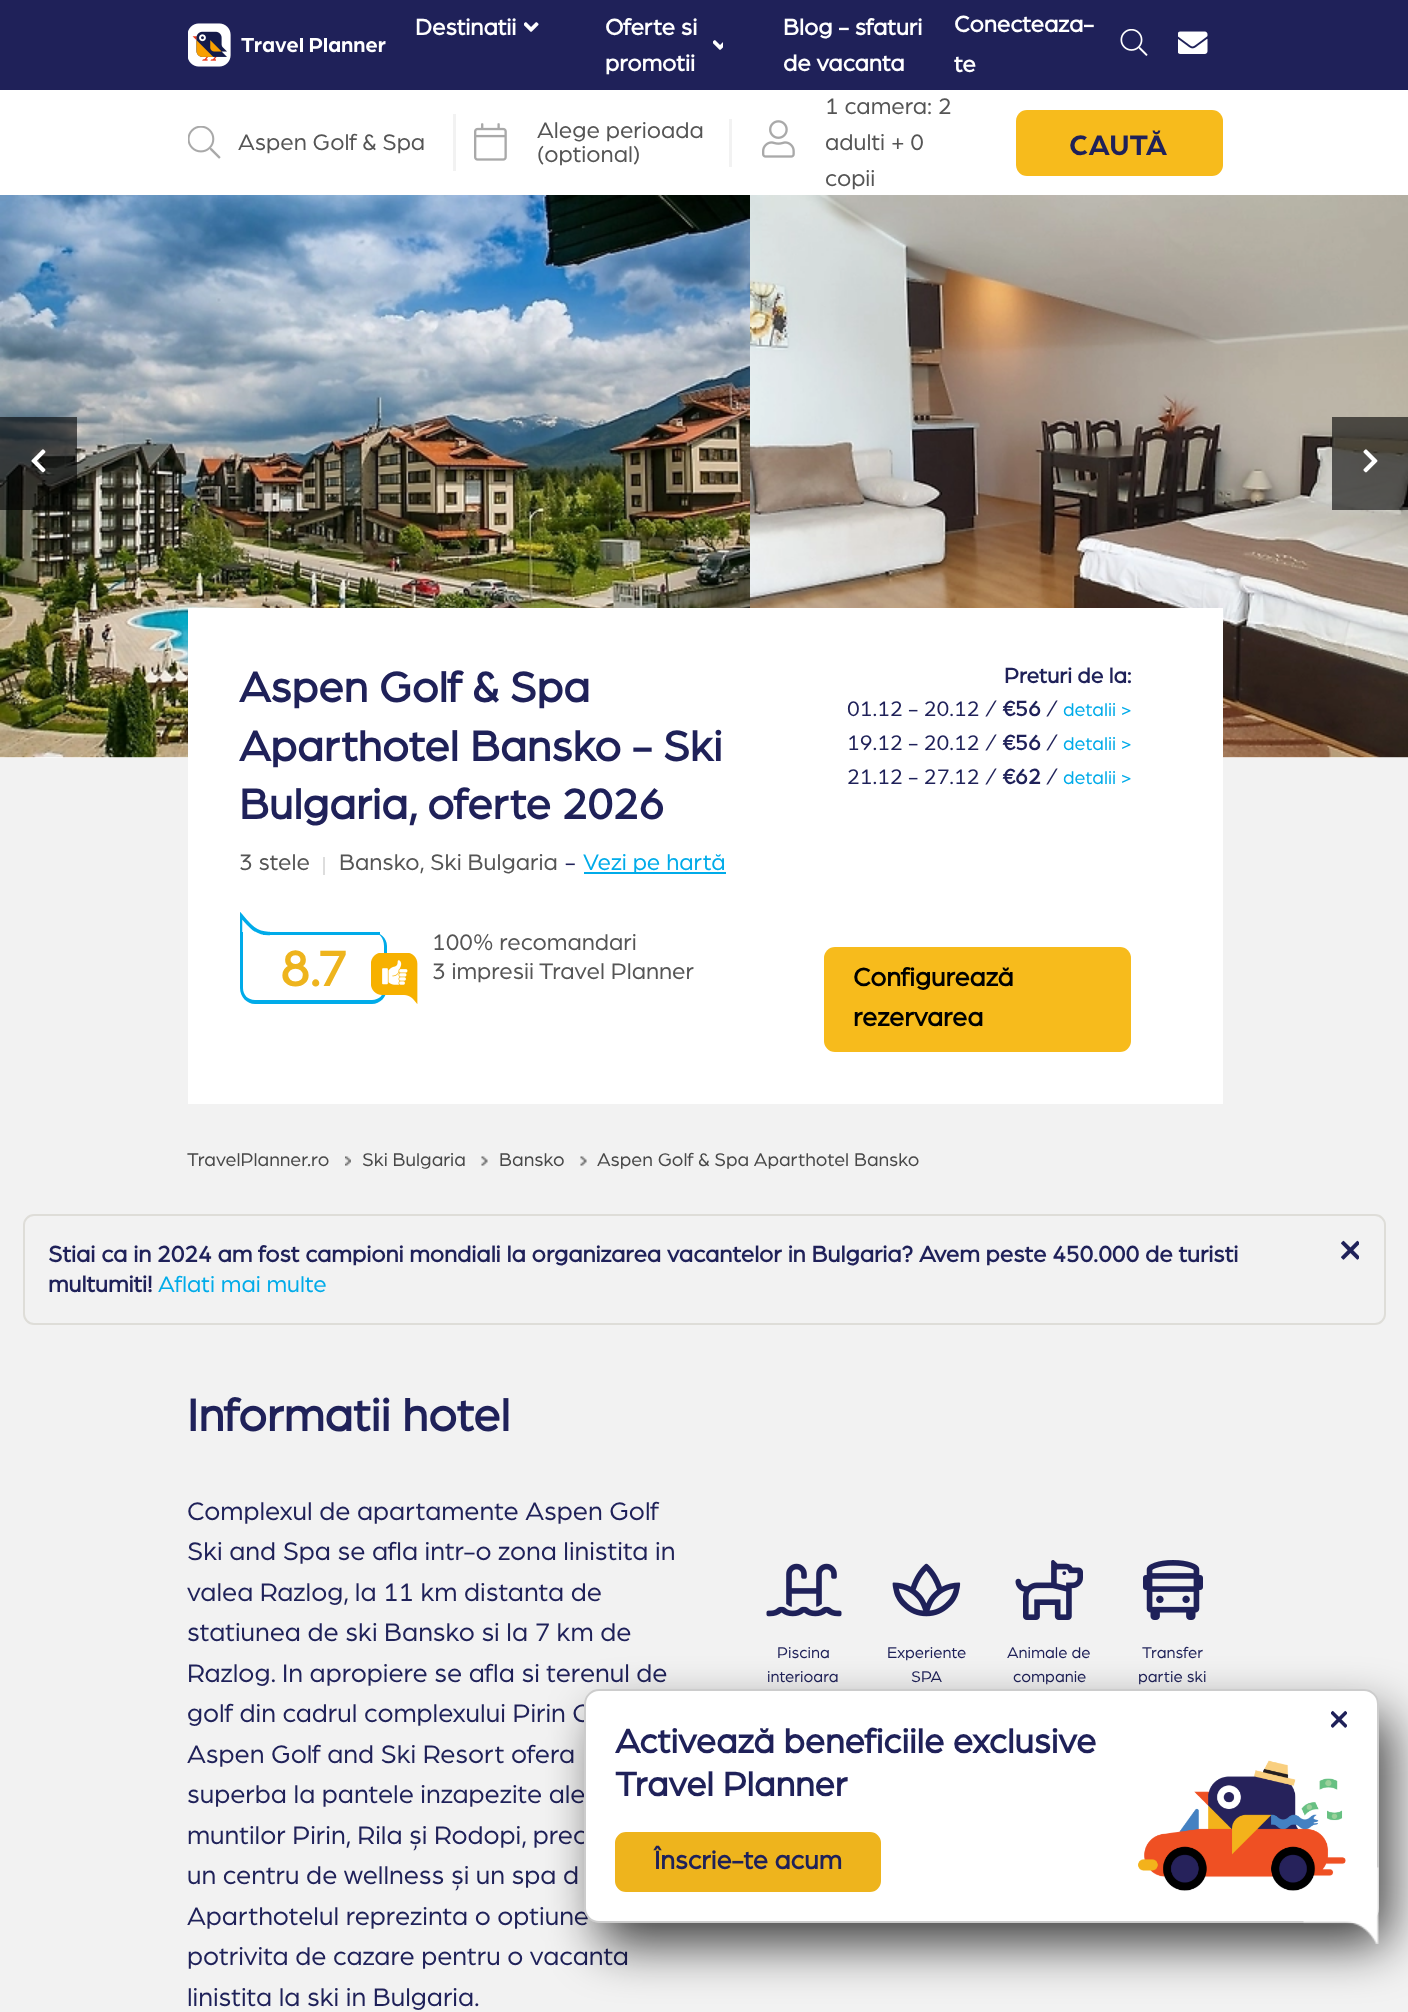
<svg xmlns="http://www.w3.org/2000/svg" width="1408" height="2012">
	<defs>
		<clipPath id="clip1"><rect x="240" y="909" width="30" height="30" /></clipPath>
	</defs>
	<rect width="100%" height="100%" fill="#FFFFFF" />
	<rect x="0" y="0" width="1408" height="90" fill="#1F2159" />
	<image x="188" y="23" width="198" height="44" href="assets/img1.png" />
	<text x="415" y="35" font-family="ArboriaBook" font-size="24" font-weight="700" fill="#FFFFFF">Destinatii</text>
	<image x="524" y="22" width="15" height="10" href="assets/img2.png" />
	<g font-family="ArboriaBook" font-size="24" font-weight="700" fill="#FFFFFF">
		<text x="605" y="35">Oferte si</text>
		<text x="605" y="71">promotii</text>
	</g>
	<image x="713" y="40" width="10" height="10" href="assets/img3.png" />
	<g font-family="ArboriaBook" font-size="24" font-weight="700" fill="#FFFFFF">
		<text x="783" y="35">Blog - sfaturi</text>
		<text x="783" y="71">de vacanta</text>
		<text x="954" y="32">Conecteaza-</text>
		<text x="954" y="72">te</text>
	</g>
	<image x="1120" y="29" width="28" height="27" href="assets/img4.png" />
	<image x="1178" y="31" width="30" height="23" href="assets/img5.png" />
	<rect x="453" y="114" width="3" height="57" fill="#F2F2F2" />
	<image x="188" y="126" width="33" height="33" href="assets/img6.png" />
	<text x="238" y="150" font-family="ArboriaBook" font-size="24" fill="#555555">Aspen Golf &amp; Spa</text>
	<rect x="729" y="119" width="3" height="48" fill="#F2F2F2" />
	<image x="474" y="123" width="33" height="38" href="assets/img7.png" />
	<g font-family="ArboriaBook" font-size="24" fill="#555555">
		<text x="537" y="138">Alege perioada</text>
		<text x="537" y="162">(optional)</text>
	</g>
	<image x="762" y="120" width="33" height="38" href="assets/img8.png" />
	<g font-family="ArboriaBook" font-size="24" fill="#555555">
		<text x="825" y="114">1 camera: 2</text>
		<text x="825" y="150">adulti + 0</text>
		<text x="825" y="186">copii</text>
	</g>
	<rect x="1016" y="110" width="207" height="66" rx="11" fill="#F7BB1C" />
	<text x="1069" y="155" font-family="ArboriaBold" font-size="30" font-weight="700" fill="#1F2159">CAUTĂ</text>
	<image x="0" y="195" width="750" height="563" href="assets/img9.png" />
	<image x="750" y="195" width="658" height="563" href="assets/img10.png" />
	<rect x="0" y="417" width="77" height="93" fill="#000000" fill-opacity="0.6" />
	<image x="31" y="449" width="15" height="24" href="assets/img11.png" />
	<rect x="1332" y="417" width="76" height="93" fill="#000000" fill-opacity="0.6" />
	<image x="1363" y="449" width="15" height="24" href="assets/img12.png" />
	<rect x="0" y="758" width="1408" height="1254" fill="#F2F2F2" />
	<rect x="188" y="608" width="1035" height="496" fill="#FFFFFF" />
	<g font-family="ArboriaBook" font-size="45" font-weight="700" fill="#1F2159">
		<text x="239" y="702">Aspen Golf &amp; Spa</text>
		<text x="239" y="761">Aparthotel Bansko - Ski</text>
		<text x="239" y="819">Bulgaria, oferte 2026</text>
	</g>
	<text x="239" y="870" font-family="ArboriaBook" font-size="24" fill="#555555">3 stele</text>
	<rect x="323" y="857" width="2" height="18" fill="#DDDDDD" />
	<g font-family="ArboriaBook" font-size="24" fill="#555555">
		<text x="339" y="870">Bansko,</text>
		<text x="430" y="870">Ski Bulgaria</text>
	</g>
	<text x="565" y="870" font-family="ArboriaBook" font-size="24" fill="#1F2159">-</text>
	<rect x="584" y="872" width="142" height="2" fill="#00ABE9" />
	<text x="583" y="870" font-family="ArboriaBook" font-size="24" fill="#00ABE9">Vezi pe hartă</text>
	<text x="1004" y="683" font-family="ArboriaBook" font-size="22.5" font-weight="700" fill="#1F2159">Preturi de la:</text>
	<text x="847" y="716" font-family="ArboriaBook" font-size="22.5" fill="#1F2159">01.12 - 20.12 /</text>
	<text x="1002" y="716" font-family="ArboriaBook" font-size="22.5" font-weight="700" fill="#1F2159">€56</text>
	<text x="1046" y="716" font-family="ArboriaBook" font-size="22.5" fill="#1F2159">/</text>
	<text x="1063" y="716" font-family="ArboriaBook" font-size="19.5" fill="#00ABE9">detalii &gt;</text>
	<text x="847" y="750" font-family="ArboriaBook" font-size="22.5" fill="#1F2159">19.12 - 20.12 /</text>
	<text x="1002" y="750" font-family="ArboriaBook" font-size="22.5" font-weight="700" fill="#1F2159">€56</text>
	<text x="1046" y="750" font-family="ArboriaBook" font-size="22.5" fill="#1F2159">/</text>
	<text x="1063" y="750" font-family="ArboriaBook" font-size="19.5" fill="#00ABE9">detalii &gt;</text>
	<text x="847" y="784" font-family="ArboriaBook" font-size="22.5" fill="#1F2159">21.12 - 27.12 /</text>
	<text x="1002" y="784" font-family="ArboriaBook" font-size="22.5" font-weight="700" fill="#1F2159">€62</text>
	<text x="1046" y="784" font-family="ArboriaBook" font-size="22.5" fill="#1F2159">/</text>
	<text x="1063" y="784" font-family="ArboriaBook" font-size="19.5" fill="#00ABE9">detalii &gt;</text>
	<path d="M240 932H372C380 932 387 938 387 946V988C387 997 380 1004 372 1004H255C247 1004 240 997 240 988ZM243 932H372C379 932 384 938 384 946V988C384 995 379 1000 372 1000H255C248 1000 243 995 243 988Z" fill="#00ABE9" fill-rule="evenodd" />
	<rect x="263" y="932" width="117" height="3" fill="#00ABE9" />
	<g clip-path="url(#clip1)">
		<path d="M268.5 933.5H377.5C385.5 933.5 392 940 392 948V1005.5C392 1013.5 385.5 1020 377.5 1020H255C247 1020 240.5 1013.5 240.5 1005.5V915C248.5 924.5 255 933.5 268.5 933.5Z" fill="none" stroke="#00ABE9" stroke-width="3.5" />
	</g>
	<text x="280" y="986" font-family="ArboriaBook" font-size="52" font-weight="700" fill="#EEB41D">8.7</text>
	<image x="371" y="953" width="47" height="51" href="assets/img13.png" />
	<g font-family="ArboriaBook" font-size="24" fill="#555555">
		<text x="432" y="950">100% recomandari</text>
		<text x="432" y="979">3 impresii Travel Planner</text>
	</g>
	<rect x="824" y="947" width="307" height="105" rx="11" fill="#F7BB1C" />
	<g font-family="ArboriaBook" font-size="27" font-weight="700" fill="#000000">
		<text x="853" y="986">Configurează</text>
		<text x="853" y="1026">rezervarea</text>
	</g>
	<text x="187" y="1166" font-family="ArboriaBook" font-size="19.5" fill="#484848">TravelPlanner.ro</text>
	<image x="345" y="1156" width="6" height="10" href="assets/img14.png" />
	<text x="362" y="1166" font-family="ArboriaBook" font-size="19.5" fill="#484848">Ski Bulgaria</text>
	<image x="481" y="1156" width="7" height="10" href="assets/img15.png" />
	<text x="499" y="1166" font-family="ArboriaBook" font-size="19.5" fill="#484848">Bansko</text>
	<image x="580" y="1156" width="7" height="10" href="assets/img16.png" />
	<text x="597" y="1166" font-family="ArboriaBook" font-size="19.5" fill="#484848">Aspen Golf &amp; Spa Aparthotel Bansko</text>
	<rect x="24" y="1215" width="1361" height="109" rx="10" fill="none" stroke="#DEDDD8" stroke-width="2" />
	<g font-family="ArboriaBook" font-size="24" font-weight="700" fill="#1F2159">
		<text x="48" y="1262">Stiai ca in 2024 am fost campioni mondiali la organizarea vacantelor in Bulgaria? Avem peste 450.000 de turisti</text>
		<text x="48" y="1292">multumiti!</text>
	</g>
	<text x="158" y="1292" font-family="ArboriaBook" font-size="24" fill="#00ABE9">Aflati mai multe</text>
	<image x="1341" y="1240" width="18" height="20" href="assets/img17.png" />
	<text x="187" y="1431" font-family="ArboriaBook" font-size="48" font-weight="700" fill="#1F2159">Informatii hotel</text>
	<g font-family="ArboriaBook" font-size="27" fill="#1F2159">
		<text x="187" y="1520">Complexul de apartamente Aspen Golf</text>
		<text x="187" y="1560">Ski and Spa se afla intr-o zona linistita in</text>
		<text x="187" y="1601">valea Razlog, la 11 km distanta de</text>
		<text x="187" y="1641">statiunea de ski Bansko si la 7 km de</text>
		<text x="187" y="1682">Razlog. In apropiere se afla si terenul de</text>
		<text x="187" y="1722">golf din cadrul complexului Pirin G</text>
		<text x="187" y="1763">Aspen Golf and Ski Resort ofera</text>
		<text x="187" y="1803">superba la pantele inzapezite ale</text>
		<text x="187" y="1844">muntilor Pirin, Rila și Rodopi, prec</text>
		<text x="187" y="1884">un centru de wellness și un spa d</text>
		<text x="187" y="1925">Aparthotelul reprezinta o optiune</text>
		<text x="187" y="1965">potrivita de cazare pentru o vacanta</text>
		<text x="187" y="2006">linistita la ski in Bulgaria.</text>
	</g>
	<image x="766" y="1563" width="76" height="54" href="assets/img18.png" />
	<g font-family="ArboriaBook" font-size="16.5" fill="#1F2159">
		<text x="777" y="1658">Piscina</text>
		<text x="767" y="1682">interioara</text>
	</g>
	<image x="892" y="1563" width="69" height="54" href="assets/img19.png" />
	<g font-family="ArboriaBook" font-size="16.5" fill="#1F2159">
		<text x="887" y="1658">Experiente</text>
		<text x="911" y="1682">SPA</text>
	</g>
	<image x="1015" y="1560" width="68" height="60" href="assets/img20.png" />
	<g font-family="ArboriaBook" font-size="16.5" fill="#1F2159">
		<text x="1007" y="1658">Animale de</text>
		<text x="1013" y="1682">companie</text>
	</g>
	<image x="1143" y="1560" width="60" height="60" href="assets/img21.png" />
	<g font-family="ArboriaBook" font-size="16.5" fill="#1F2159">
		<text x="1142" y="1658">Transfer</text>
		<text x="1138" y="1682">partie ski</text>
	</g>
	<rect x="600" y="1716" width="789" height="228" rx="12" fill="#000000" fill-opacity="0.75" filter="blur(25.5px)" />
	<rect x="584" y="1689" width="795" height="234" rx="15" fill="#FFFFFF" />
	<rect x="585" y="1690" width="793" height="232" rx="14" fill="none" stroke="#000000" stroke-opacity="0.2" stroke-width="2" />
	<image x="1331" y="1710" width="16" height="18" href="assets/img22.png" />
	<g font-family="ArboriaBook" font-size="36" font-weight="700" fill="#1F2159">
		<text x="615" y="1753">Activează beneficiile exclusive</text>
		<text x="615" y="1796">Travel Planner</text>
	</g>
	<rect x="616" y="1833" width="264" height="58" rx="10" fill="#EEB41D" stroke="#EEB41D" stroke-width="2" />
	<text x="654" y="1869" font-family="ArboriaBook" font-size="27" font-weight="700" fill="#1F2159">Înscrie-te acum</text>
	<image x="1303" y="1867" width="76" height="77" href="assets/img24.png" />
	<image x="1138" y="1760" width="208" height="131" href="assets/img23.png" />
</svg>
